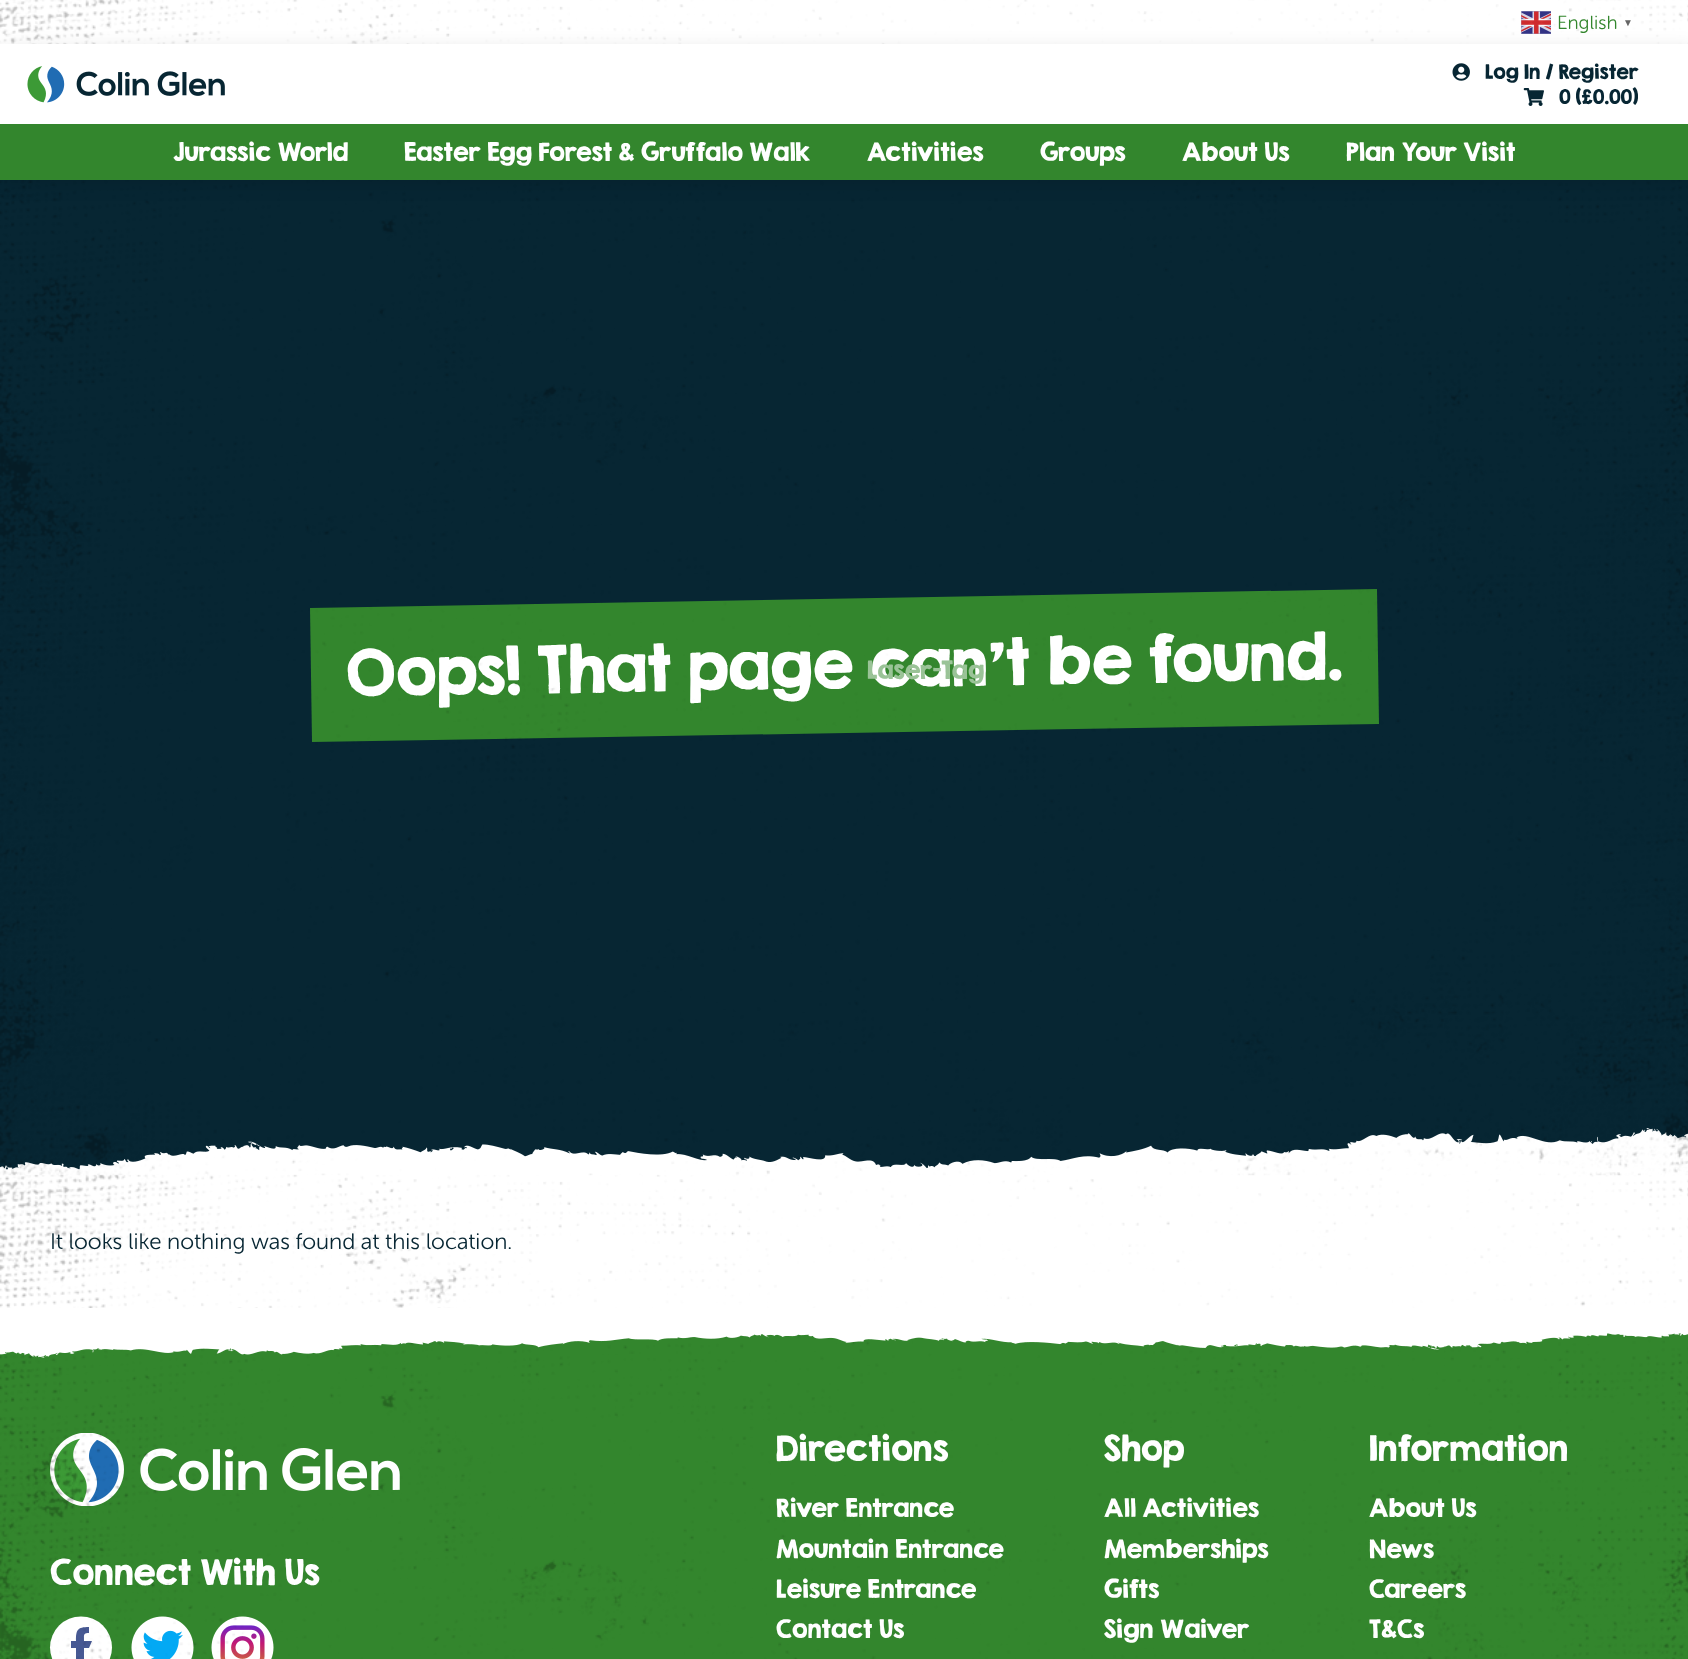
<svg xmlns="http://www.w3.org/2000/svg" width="1688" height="1659">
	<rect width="100%" height="100%" fill="#FFFFFF" />
	<rect x="0" y="180" width="1688" height="990" fill="#072633" />
	<path d="M310 608L1377 589L1379 724L312 742Z" fill="#33862D" />
	<text x="346" y="697" transform="rotate(-1 346 697)" font-family="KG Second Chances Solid" font-size="58.5" fill="#FFFFFF">Oops! That page can’t be found.</text>
	<image x="0" y="1128" width="1688" height="48" href="assets/img6.png" />
	<text x="50" y="1249" font-family="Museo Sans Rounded" font-size="22.5" font-weight="300" fill="#072633">It looks like nothing was found at this location.</text>
	<rect x="0" y="1333" width="1688" height="326" fill="#33862D" />
	<image x="50" y="1433" width="350" height="73" href="assets/img8.png" />
	<text x="50" y="1585" font-family="KG Second Chances Solid" font-size="31.5" fill="#FFFFFF">Connect With Us</text>
	<circle cx="81" cy="1647.5" r="31" fill="#FFFFFF" />
	<path d="M92 1641H84C84 1635 83 1633 89 1633V1627C77 1627 76 1630 76 1641H71V1648H76V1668H84V1648H89Z" fill="#475993" />
	<image x="131" y="1616" width="63" height="43" href="assets/img9.png" />
	<image x="211" y="1616" width="63" height="43" href="assets/img10.png" />
	<text x="776" y="1461" font-family="KG Second Chances Solid" font-size="31.5" fill="#FFFFFF">Directions</text>
	<g font-family="KG Second Chances Solid" font-size="22.5" fill="#FFFFFF">
		<text x="776" y="1517">River Entrance</text>
		<text x="776" y="1558">Mountain Entrance</text>
		<text x="776" y="1598">Leisure Entrance</text>
		<text x="776" y="1638">Contact Us</text>
	</g>
	<text x="1104" y="1461" font-family="KG Second Chances Solid" font-size="31.5" fill="#FFFFFF">Shop</text>
	<g font-family="KG Second Chances Solid" font-size="22.5" fill="#FFFFFF">
		<text x="1104" y="1517">All Activities</text>
		<text x="1104" y="1558">Memberships</text>
		<text x="1104" y="1598">Gifts</text>
		<text x="1104" y="1638">Sign Waiver</text>
	</g>
	<text x="1369" y="1461" font-family="KG Second Chances Solid" font-size="31.5" fill="#FFFFFF">Information</text>
	<g font-family="KG Second Chances Solid" font-size="22.5" fill="#FFFFFF">
		<text x="1369" y="1517">About Us</text>
		<text x="1369" y="1558">News</text>
		<text x="1369" y="1598">Careers</text>
		<text x="1369" y="1638">T&amp;Cs</text>
	</g>
	<image x="0" y="0" width="1688" height="1659" href="assets/img1.png" />
	<rect x="4" y="48" width="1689" height="136" fill="#000000" fill-opacity="0.1" filter="blur(9px)" />
	<image x="1521" y="11" width="30" height="23" href="assets/img2.png" />
	<text x="1557" y="29" font-family="Museo Sans Rounded" font-size="19" font-weight="300" fill="#33862D">English</text>
	<text x="1623" y="26" font-family="Liberation Sans" font-size="10" font-weight="700" fill="#666666">▼</text>
	<rect x="0" y="44" width="1688" height="80" fill="#FFFFFF" />
	<image x="27" y="66" width="198" height="37" href="assets/img3.png" />
	<image x="1452" y="63" width="18" height="18" href="assets/img4.png" />
	<text x="1485" y="79" font-family="KG Second Chances Solid" font-size="18" fill="#072633">Log In / Register</text>
	<image x="1523" y="88" width="21" height="18" href="assets/img5.png" />
	<text x="1559" y="104" font-family="KG Second Chances Solid" font-size="18" fill="#072633">0 (£0.00)</text>
	<rect x="0" y="124" width="1688" height="56" fill="#33862D" />
	<g font-family="KG Second Chances Solid" font-size="22.5" fill="#FFFFFF">
		<text x="173" y="161">Jurassic World</text>
		<text x="404" y="161">Easter Egg Forest &amp; Gruffalo Walk</text>
		<text x="867" y="161">Activities</text>
	</g>
	<text x="867" y="679" font-family="KG Second Chances Solid" font-size="22.5" fill="#9AC397">Laser-Tag</text>
	<g font-family="KG Second Chances Solid" font-size="22.5" fill="#FFFFFF">
		<text x="1040" y="161">Groups</text>
		<text x="1182" y="161">About Us</text>
		<text x="1346" y="161">Plan Your Visit</text>
	</g>
	<image x="0" y="1308" width="1688" height="50" href="assets/img7.png" />
</svg>
